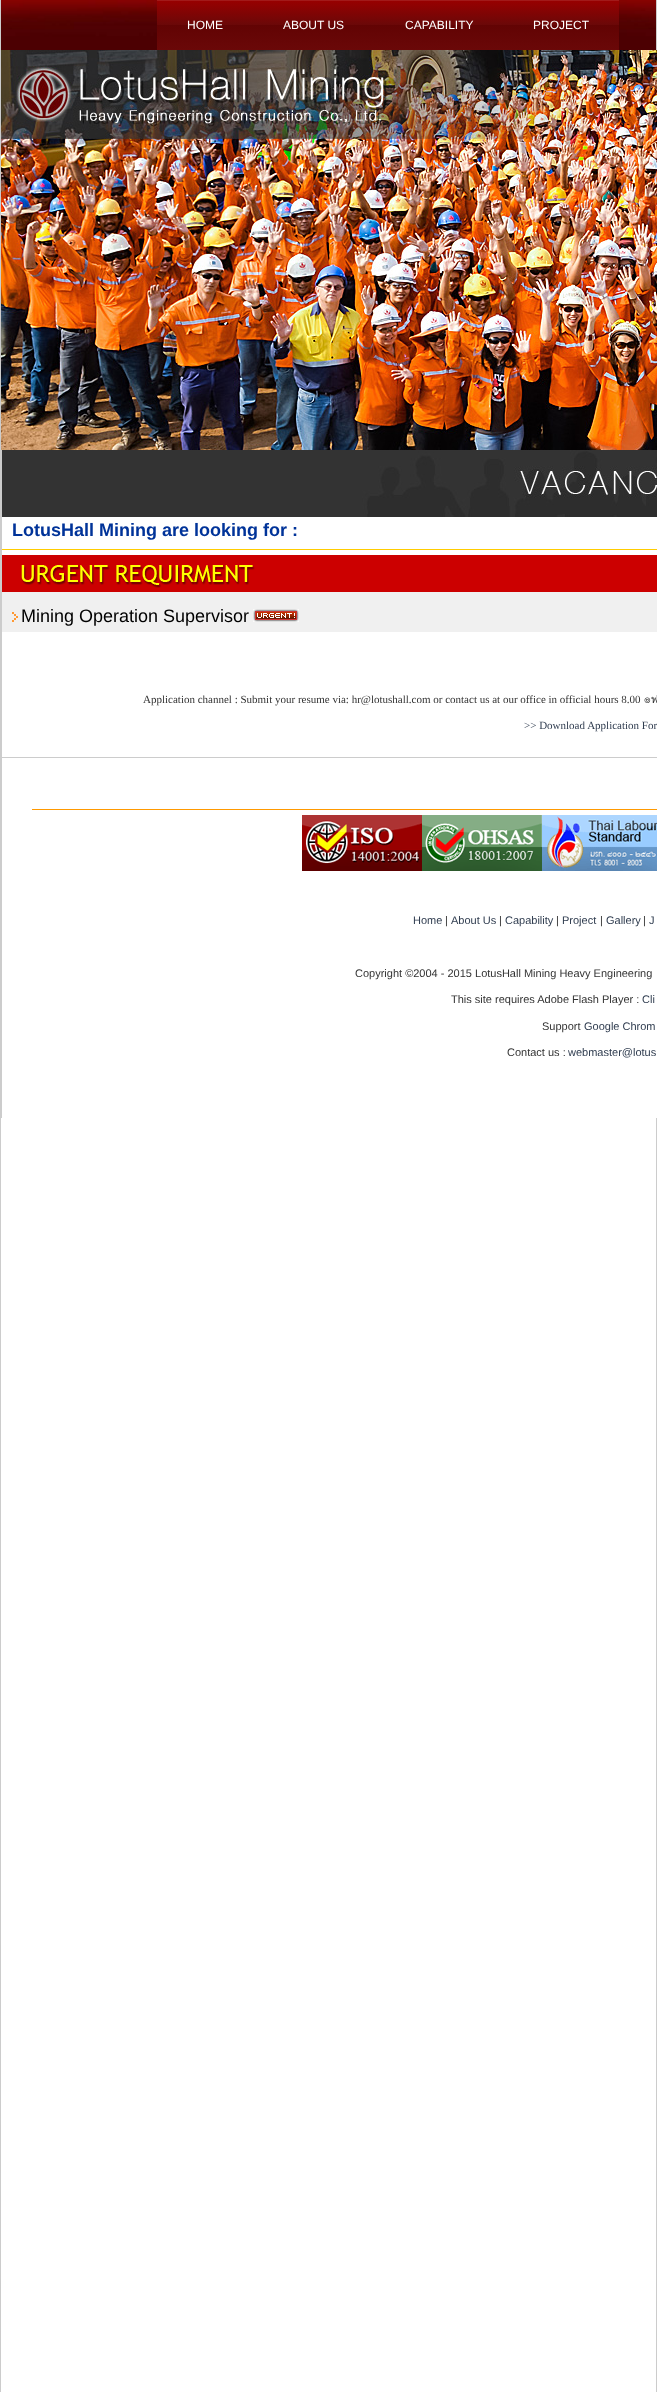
<svg xmlns="http://www.w3.org/2000/svg" width="657" height="2392">
	<defs>
		<linearGradient id="g1" gradientUnits="userSpaceOnUse" x1="205" y1="0" x2="205" y2="50"><stop offset="0" stop-color="#990000" /><stop offset="0.5" stop-color="#6A0808" /><stop offset="0.5" stop-color="#620303" /><stop offset="1" stop-color="#6A0808" /></linearGradient>
		<linearGradient id="g2" gradientUnits="userSpaceOnUse" x1="314" y1="0" x2="314" y2="50"><stop offset="0" stop-color="#990000" /><stop offset="0.5" stop-color="#6A0808" /><stop offset="0.5" stop-color="#620303" /><stop offset="1" stop-color="#6A0808" /></linearGradient>
		<linearGradient id="g3" gradientUnits="userSpaceOnUse" x1="439" y1="0" x2="439" y2="50"><stop offset="0" stop-color="#990000" /><stop offset="0.5" stop-color="#6A0808" /><stop offset="0.5" stop-color="#620303" /><stop offset="1" stop-color="#6A0808" /></linearGradient>
		<linearGradient id="g4" gradientUnits="userSpaceOnUse" x1="561" y1="0" x2="561" y2="50"><stop offset="0" stop-color="#990000" /><stop offset="0.5" stop-color="#6A0808" /><stop offset="0.5" stop-color="#620303" /><stop offset="1" stop-color="#6A0808" /></linearGradient>
	</defs>
	<rect width="100%" height="100%" fill="#FFFFFF" />
	<rect x="656" y="0" width="1" height="2392" fill="#CCCCCC" />
	<rect x="0" y="0" width="1" height="2392" fill="#CCCCCC" />
	<image x="1" y="0" width="655" height="50" href="assets/img1.png" />
	<rect x="157" y="1" width="96" height="49" fill="url(#g1)" />
	<rect x="157" y="0" width="462" height="1" fill="#A21A1A" />
	<text x="187" y="29" font-family="Liberation Sans" font-size="12" fill="#FFFFFF">HOME</text>
	<rect x="253" y="1" width="122" height="49" fill="url(#g2)" />
	<text x="283" y="29" font-family="Liberation Sans" font-size="12" fill="#FFFFFF">ABOUT US</text>
	<rect x="375" y="1" width="128" height="49" fill="url(#g3)" />
	<text x="405" y="29" font-family="Liberation Sans" font-size="12" fill="#FFFFFF">CAPABILITY</text>
	<rect x="503" y="1" width="116" height="49" fill="url(#g4)" />
	<text x="533" y="29" font-family="Liberation Sans" font-size="12" fill="#FFFFFF">PROJECT</text>
	<image x="1" y="50" width="656" height="400" href="assets/img2.png" />
	<rect x="656" y="517" width="1" height="601" fill="#FFFFFF" />
	<rect x="1" y="450" width="1" height="668" fill="#CCCCCC" />
	<image x="2" y="450" width="655" height="67" href="assets/img3.png" />
	<text x="12" y="536" font-family="Liberation Sans" font-size="18" font-weight="700" fill="#003399">LotusHall Mining are looking for :</text>
	<rect x="2" y="549" width="655" height="1" fill="#FFCC00" />
	<rect x="2" y="555" width="655" height="37" fill="#CC0000" />
	<image x="21" y="565" width="234" height="23" href="assets/img4.png" />
	<rect x="2" y="592" width="655" height="40" fill="#F0F0F0" />
	<image x="12" y="612" width="6" height="10" href="assets/img5.png" />
	<text x="21" y="622" font-family="Liberation Sans" font-size="18" fill="#000000">Mining Operation Supervisor</text>
	<image x="253" y="609" width="46" height="13" href="assets/img6.png" />
	<text x="143" y="703" font-family="Liberation Serif" font-size="11" fill="#333333">Application channel : Submit your resume via: hr@lotushall.com or contact us at our office in official hours 8.00</text>
	<text x="644" y="703" font-family="Loma" font-size="11" fill="#333333">๏ฟ</text>
	<text x="524" y="729" font-family="Liberation Serif" font-size="11" fill="#2F3C4F">&gt;&gt; Download Application For</text>
	<rect x="2" y="757" width="655" height="1" fill="#CCCCCC" />
	<rect x="32" y="809" width="625" height="1" fill="#FF9900" />
	<image x="302" y="815" width="120" height="56" href="assets/img7.png" />
	<image x="422" y="815" width="120" height="56" href="assets/img8.png" />
	<image x="542" y="815" width="115" height="56" href="assets/img9.png" />
	<text x="413" y="924" font-family="Liberation Sans" font-size="11" fill="#2F3C4F">Home</text>
	<text x="445" y="924" font-family="Liberation Sans" font-size="11" fill="#333333">|</text>
	<text x="451" y="924" font-family="Liberation Sans" font-size="11" fill="#2F3C4F">About Us</text>
	<text x="499" y="924" font-family="Liberation Sans" font-size="11" fill="#333333">|</text>
	<text x="505" y="924" font-family="Liberation Sans" font-size="11" fill="#2F3C4F">Capability</text>
	<text x="556" y="924" font-family="Liberation Sans" font-size="11" fill="#333333">|</text>
	<text x="562" y="924" font-family="Liberation Sans" font-size="11" fill="#2F3C4F">Project</text>
	<text x="600" y="924" font-family="Liberation Sans" font-size="11" fill="#333333">|</text>
	<text x="606" y="924" font-family="Liberation Sans" font-size="11" fill="#2F3C4F">Gallery</text>
	<text x="643" y="924" font-family="Liberation Sans" font-size="11" fill="#333333">|</text>
	<text x="649" y="924" font-family="Liberation Sans" font-size="11" fill="#2F3C4F">J</text>
	<g font-family="Liberation Sans" font-size="11" fill="#333333">
		<text x="355" y="977">Copyright ©2004 - 2015 LotusHall Mining Heavy Engineering</text>
		<text x="451" y="1003">This site requires Adobe Flash Player :</text>
	</g>
	<text x="642" y="1003" font-family="Liberation Sans" font-size="11" fill="#2F3C4F">Cli</text>
	<text x="542" y="1030" font-family="Liberation Sans" font-size="11" fill="#333333">Support</text>
	<text x="584" y="1030" font-family="Liberation Sans" font-size="11" fill="#2F3C4F">Google Chrom</text>
	<text x="507" y="1056" font-family="Liberation Sans" font-size="11" fill="#333333">Contact us :</text>
	<text x="568" y="1056" font-family="Liberation Sans" font-size="11" fill="#2F3C4F">webmaster@lotus</text>
</svg>
